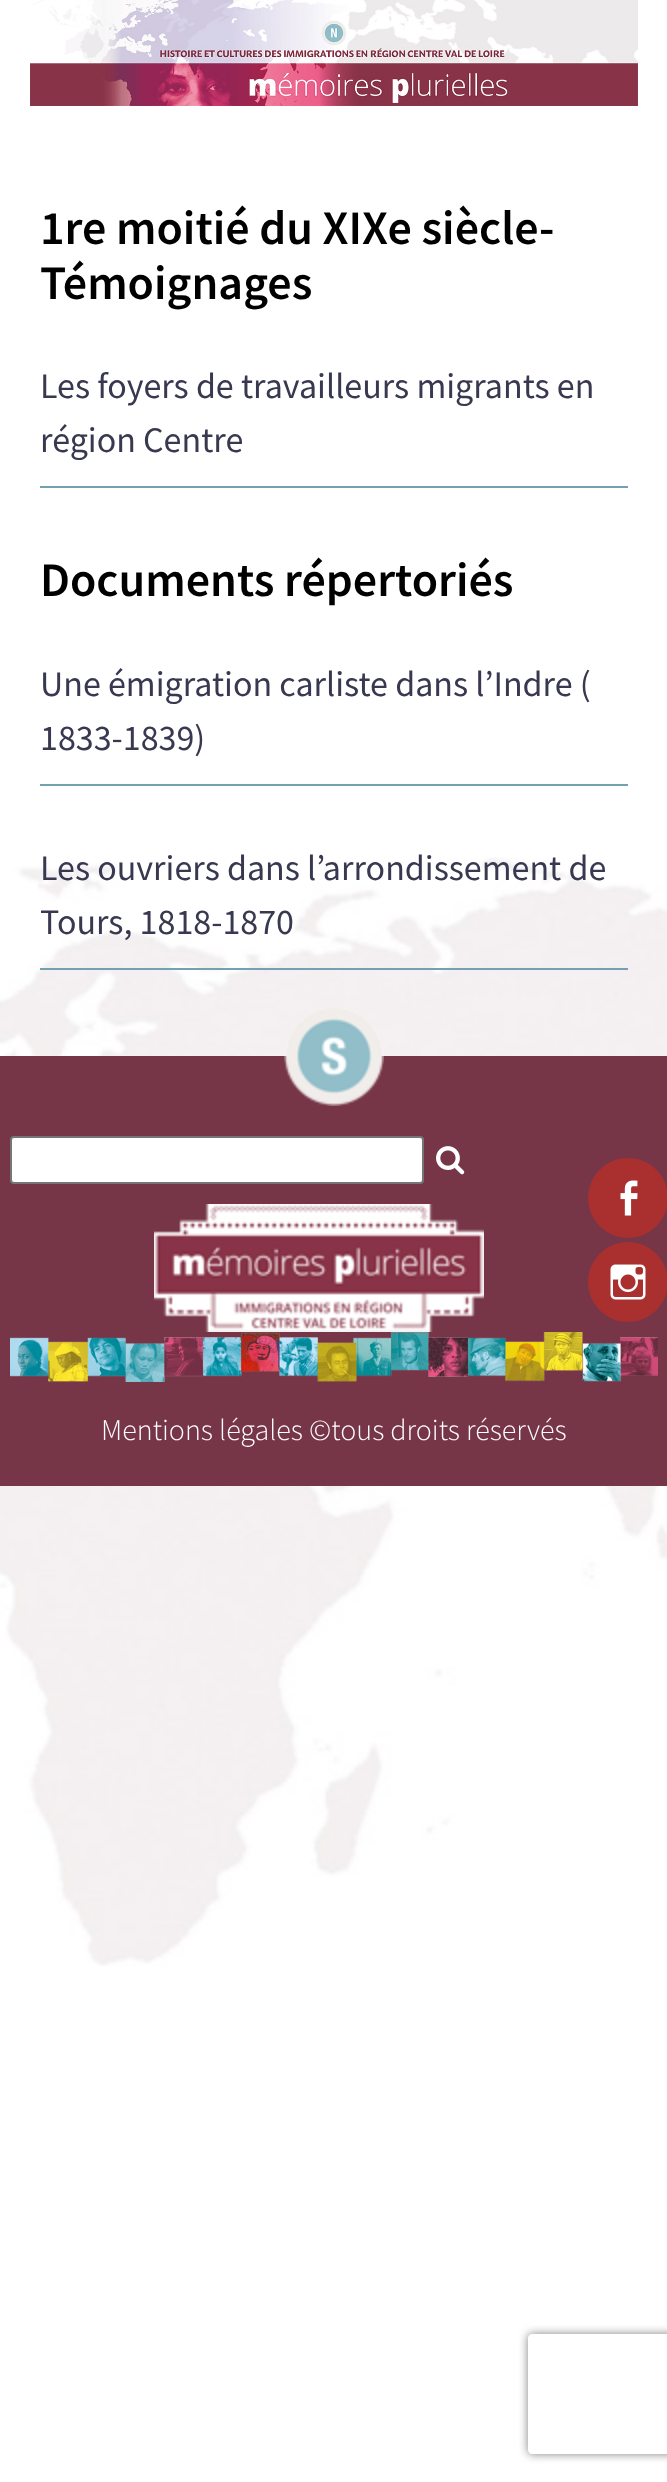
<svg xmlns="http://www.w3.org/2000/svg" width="667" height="2482">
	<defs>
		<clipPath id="clip1"><path d="M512 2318H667V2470H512ZM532 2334H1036C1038 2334 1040 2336 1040 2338V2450C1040 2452 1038 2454 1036 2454H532C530 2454 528 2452 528 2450V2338C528 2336 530 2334 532 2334Z" clip-rule="evenodd" /></clipPath>
	</defs>
	<rect width="100%" height="100%" fill="#FFFFFF" />
	<image x="0" y="857" width="667" height="1109" href="assets/img1.png" />
	<image x="30" y="0" width="608" height="106" href="assets/img2.png" />
	<g font-family="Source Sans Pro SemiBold" font-size="48" font-weight="600" fill="#000000">
		<text x="40" y="244">1re moitié du XIXe siècle-</text>
		<text x="40" y="299">Témoignages</text>
	</g>
	<rect x="40" y="486" width="588" height="2" fill="#72A2B0" />
	<g font-family="Source Sans Pro" font-size="36" fill="#383850">
		<text x="40" y="398">Les foyers de travailleurs migrants en</text>
		<text x="40" y="452">région Centre</text>
	</g>
	<text x="40" y="596" font-family="Source Sans Pro SemiBold" font-size="48" font-weight="600" fill="#000000">Documents répertoriés</text>
	<rect x="40" y="784" width="588" height="2" fill="#72A2B0" />
	<g font-family="Source Sans Pro" font-size="36" fill="#383850">
		<text x="40" y="696">Une émigration carliste dans l’Indre (</text>
		<text x="40" y="750">1833-1839)</text>
	</g>
	<rect x="40" y="968" width="588" height="2" fill="#72A2B0" />
	<g font-family="Source Sans Pro" font-size="36" fill="#383850">
		<text x="40" y="880">Les ouvriers dans l’arrondissement de</text>
		<text x="40" y="934">Tours, 1818-1870</text>
	</g>
	<rect x="0" y="1056" width="667" height="430" fill="#763648" />
	<circle cx="628" cy="1198" r="40" fill="#AA3030" />
	<image x="620" y="1180" width="18" height="36" href="assets/img3.png" />
	<circle cx="628" cy="1282" r="40" fill="#AA3030" />
	<image x="610" y="1264" width="36" height="36" href="assets/img4.png" />
	<image x="284" y="1008" width="100" height="98" href="assets/img5.png" />
	<rect x="11" y="1137" width="412" height="46" rx="3" fill="#FFFFFF" stroke="#767676" stroke-width="2" />
	<image x="436" y="1146" width="29" height="29" href="assets/img6.png" />
	<image x="154" y="1204" width="330" height="128" href="assets/img7.png" />
	<image x="10" y="1332" width="648" height="50" href="assets/img8.png" />
	<text x="101" y="1440" font-family="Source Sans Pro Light" font-size="30" font-weight="300" fill="#FFFFFF">Mentions légales ©tous droits réservés</text>
	<g clip-path="url(#clip1)">
		<rect x="528" y="2334" width="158" height="120" rx="4" fill="#808080" filter="blur(5px)" />
	</g>
</svg>
